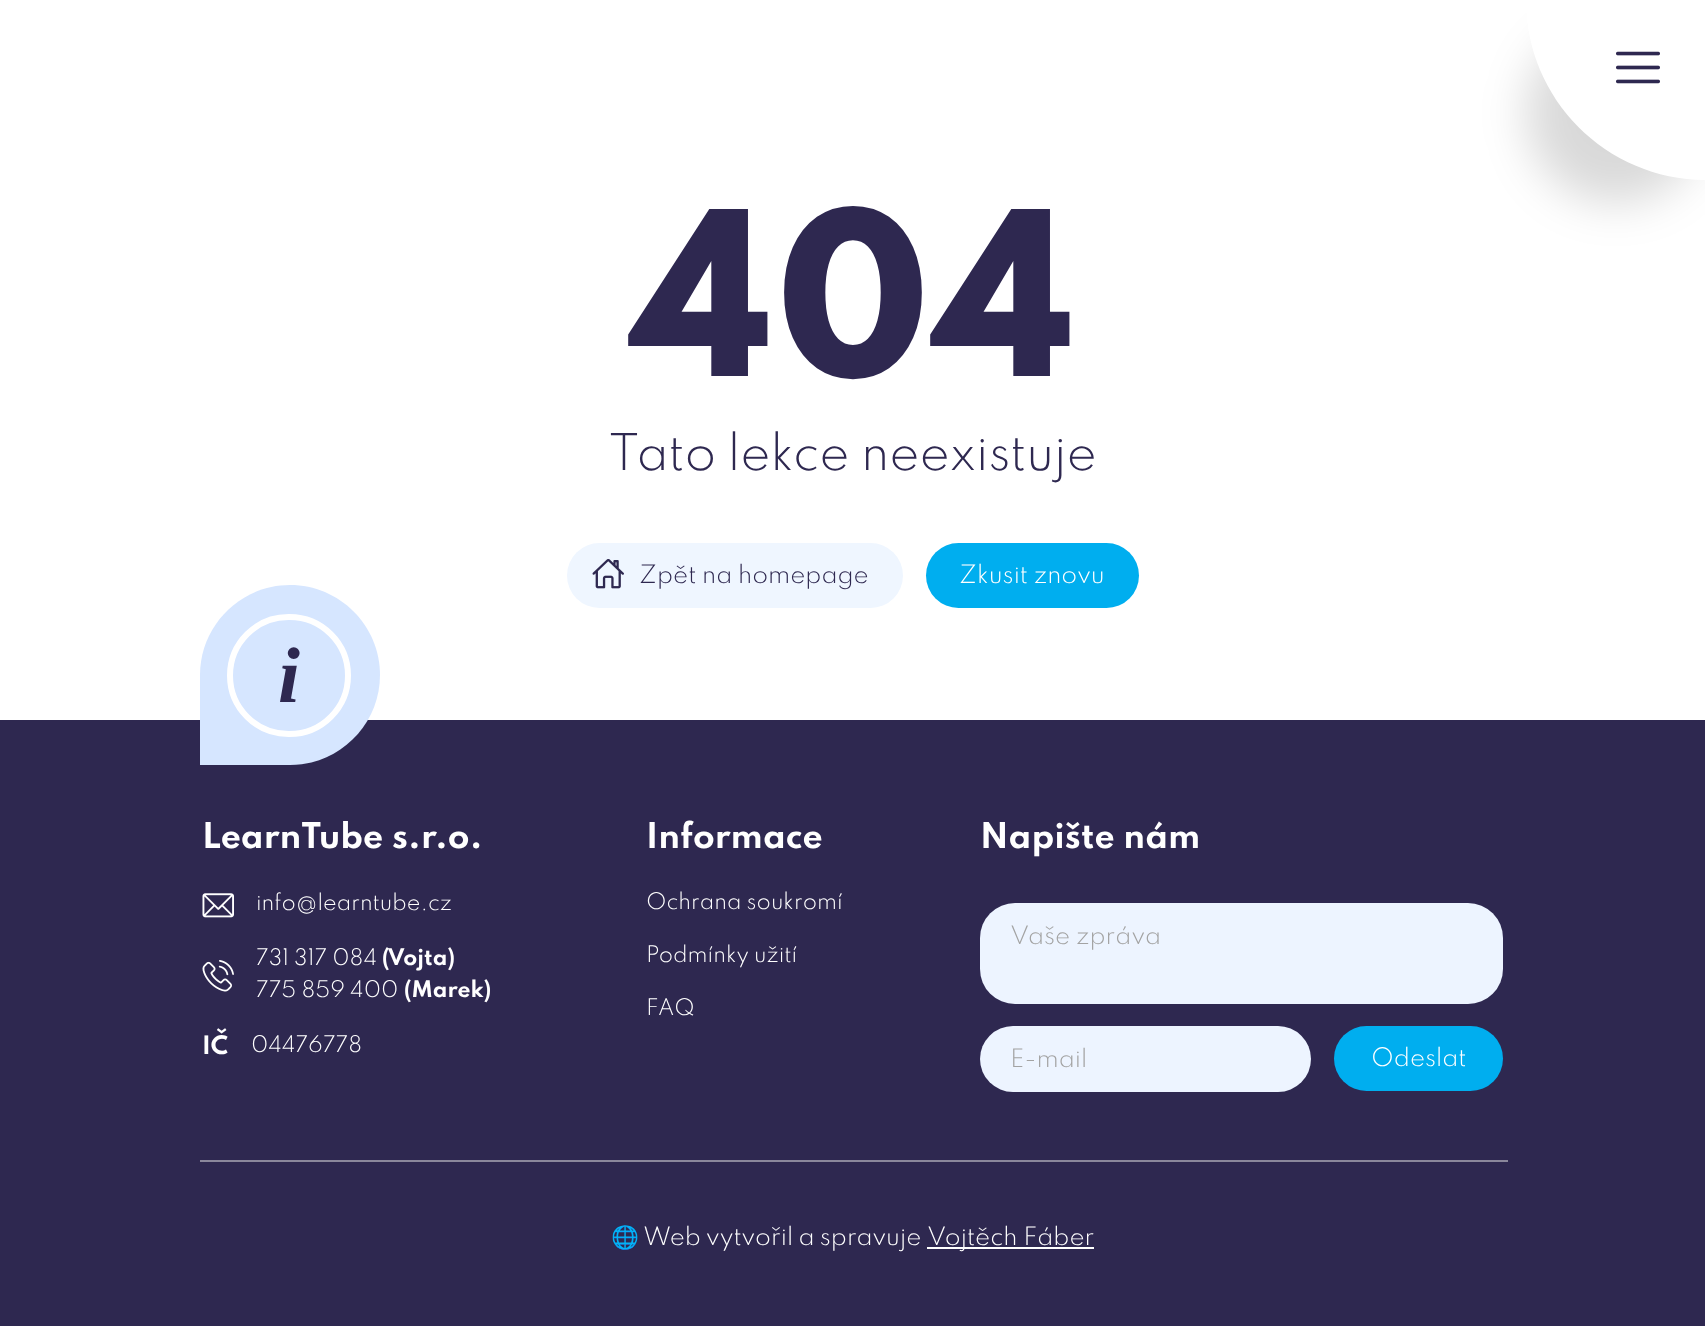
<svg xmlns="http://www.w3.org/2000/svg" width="1705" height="1340">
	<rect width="100%" height="100%" fill="#FFFFFF" />
	<rect x="1526" y="23" width="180" height="180" rx="180" fill="#000000" fill-opacity="0.15" filter="blur(22.5px)" />
	<path d="M1526 0H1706V180C1606.5 180 1526 99.5 1526 0Z" fill="#FFFFFF" />
	<image x="1616" y="51" width="44" height="33" href="assets/img1.png" />
	<text x="629" y="376" font-family="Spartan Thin" font-size="202.5" font-weight="800" fill="#2E2850">404</text>
	<text x="608" y="470" font-family="Spartan Thin" font-size="45" font-weight="300" fill="#2E2850">Tato lekce neexistuje</text>
	<rect x="567" y="543" width="336" height="65" rx="32.5" fill="#EFF6FF" />
	<image x="592" y="559" width="32" height="30" href="assets/img2.png" />
	<text x="639" y="583" font-family="Spartan Thin" font-size="22.5" font-weight="300" fill="#2E2850">Zpět na homepage</text>
	<rect x="926" y="543" width="213" height="65" rx="32.5" fill="#00AEEF" />
	<text x="959" y="583" font-family="Spartan Thin" font-size="22.5" font-weight="300" fill="#FFFFFF">Zkusit znovu</text>
	<rect x="0" y="720" width="1705" height="606" fill="#2E2850" />
	<path d="M290 585C339.5 585 380 625.5 380 675C380 724.5 339.5 765 290 765H200V675C200 625.5 240.5 585 290 585Z" fill="#D6E6FF" />
	<rect x="230" y="617" width="118" height="117" rx="58.5" fill="none" stroke="#FFFFFF" stroke-width="6" />
	<text x="278" y="702" font-family="Liberation Serif" font-size="79" font-weight="700" font-style="italic" fill="#2E2850">i</text>
	<text x="202" y="848" font-family="Spartan Thin" font-size="31.5" font-weight="700" fill="#FFFFFF">LearnTube s.r.o.</text>
	<image x="202" y="893" width="32" height="25" href="assets/img3.png" />
	<text x="256" y="910" font-family="Spartan Thin" font-size="20.25" font-weight="300" fill="#FFFFFF">info@learntube.cz</text>
	<image x="202" y="960" width="32" height="32" href="assets/img4.png" />
	<text x="256" y="965" font-family="Spartan Thin" font-size="20.25" font-weight="300" fill="#FFFFFF">731 317 084</text>
	<text x="382" y="965" font-family="Spartan Thin" font-size="20.25" font-weight="700" fill="#FFFFFF">(Vojta)</text>
	<text x="256" y="997" font-family="Spartan Thin" font-size="20.25" font-weight="300" fill="#FFFFFF">775 859 400</text>
	<text x="404" y="997" font-family="Spartan Thin" font-size="20.25" font-weight="700" fill="#FFFFFF">(Marek)</text>
	<text x="202" y="1054" font-family="Spartan Thin" font-size="22.5" font-weight="700" fill="#FFFFFF">IČ</text>
	<text x="251" y="1052" font-family="Spartan Thin" font-size="20.25" font-weight="300" fill="#FFFFFF">04476778</text>
	<text x="646" y="848" font-family="Spartan Thin" font-size="31.5" font-weight="700" fill="#FFFFFF">Informace</text>
	<g font-family="Spartan Thin" font-size="20.25" font-weight="300" fill="#FFFFFF">
		<text x="646" y="909">Ochrana soukromí</text>
		<text x="646" y="962">Podmínky užití</text>
		<text x="646" y="1015">FAQ</text>
	</g>
	<text x="980" y="848" font-family="Spartan Thin" font-size="31.5" font-weight="700" fill="#FFFFFF">Napište nám</text>
	<rect x="980" y="903" width="523" height="101" rx="35" fill="#EDF4FF" />
	<text x="1010" y="944" font-family="Spartan Thin" font-size="22.5" font-weight="300" fill="#A3A3A3">Vaše zpráva</text>
	<rect x="980" y="1026" width="331" height="66" rx="33" fill="#EDF4FF" />
	<text x="1010" y="1067" font-family="Spartan Thin" font-size="22.5" font-weight="300" fill="#A3A3A3">E-mail</text>
	<rect x="1334" y="1026" width="169" height="65" rx="32.5" fill="#00AEEF" />
	<text x="1371" y="1066" font-family="Spartan Thin" font-size="22.5" font-weight="300" fill="#FFFFFF">Odeslat</text>
	<rect x="200" y="1160" width="1308" height="2" fill="#8A879B" />
	<text x="611" y="1245" font-family="Noto Color Emoji" font-size="22.5" fill="#FFFFFF">🌐</text>
	<text x="643" y="1245" word-spacing="-0.5" font-family="Spartan Thin" font-size="22.5" font-weight="300" fill="#FFFFFF">Web vytvořil a spravuje</text>
	<rect x="927" y="1247" width="167" height="2" fill="#FFFFFF" />
	<text x="927" y="1245" font-family="Spartan Thin" font-size="22.5" font-weight="300" fill="#FFFFFF">Vojtěch Fáber</text>
</svg>
